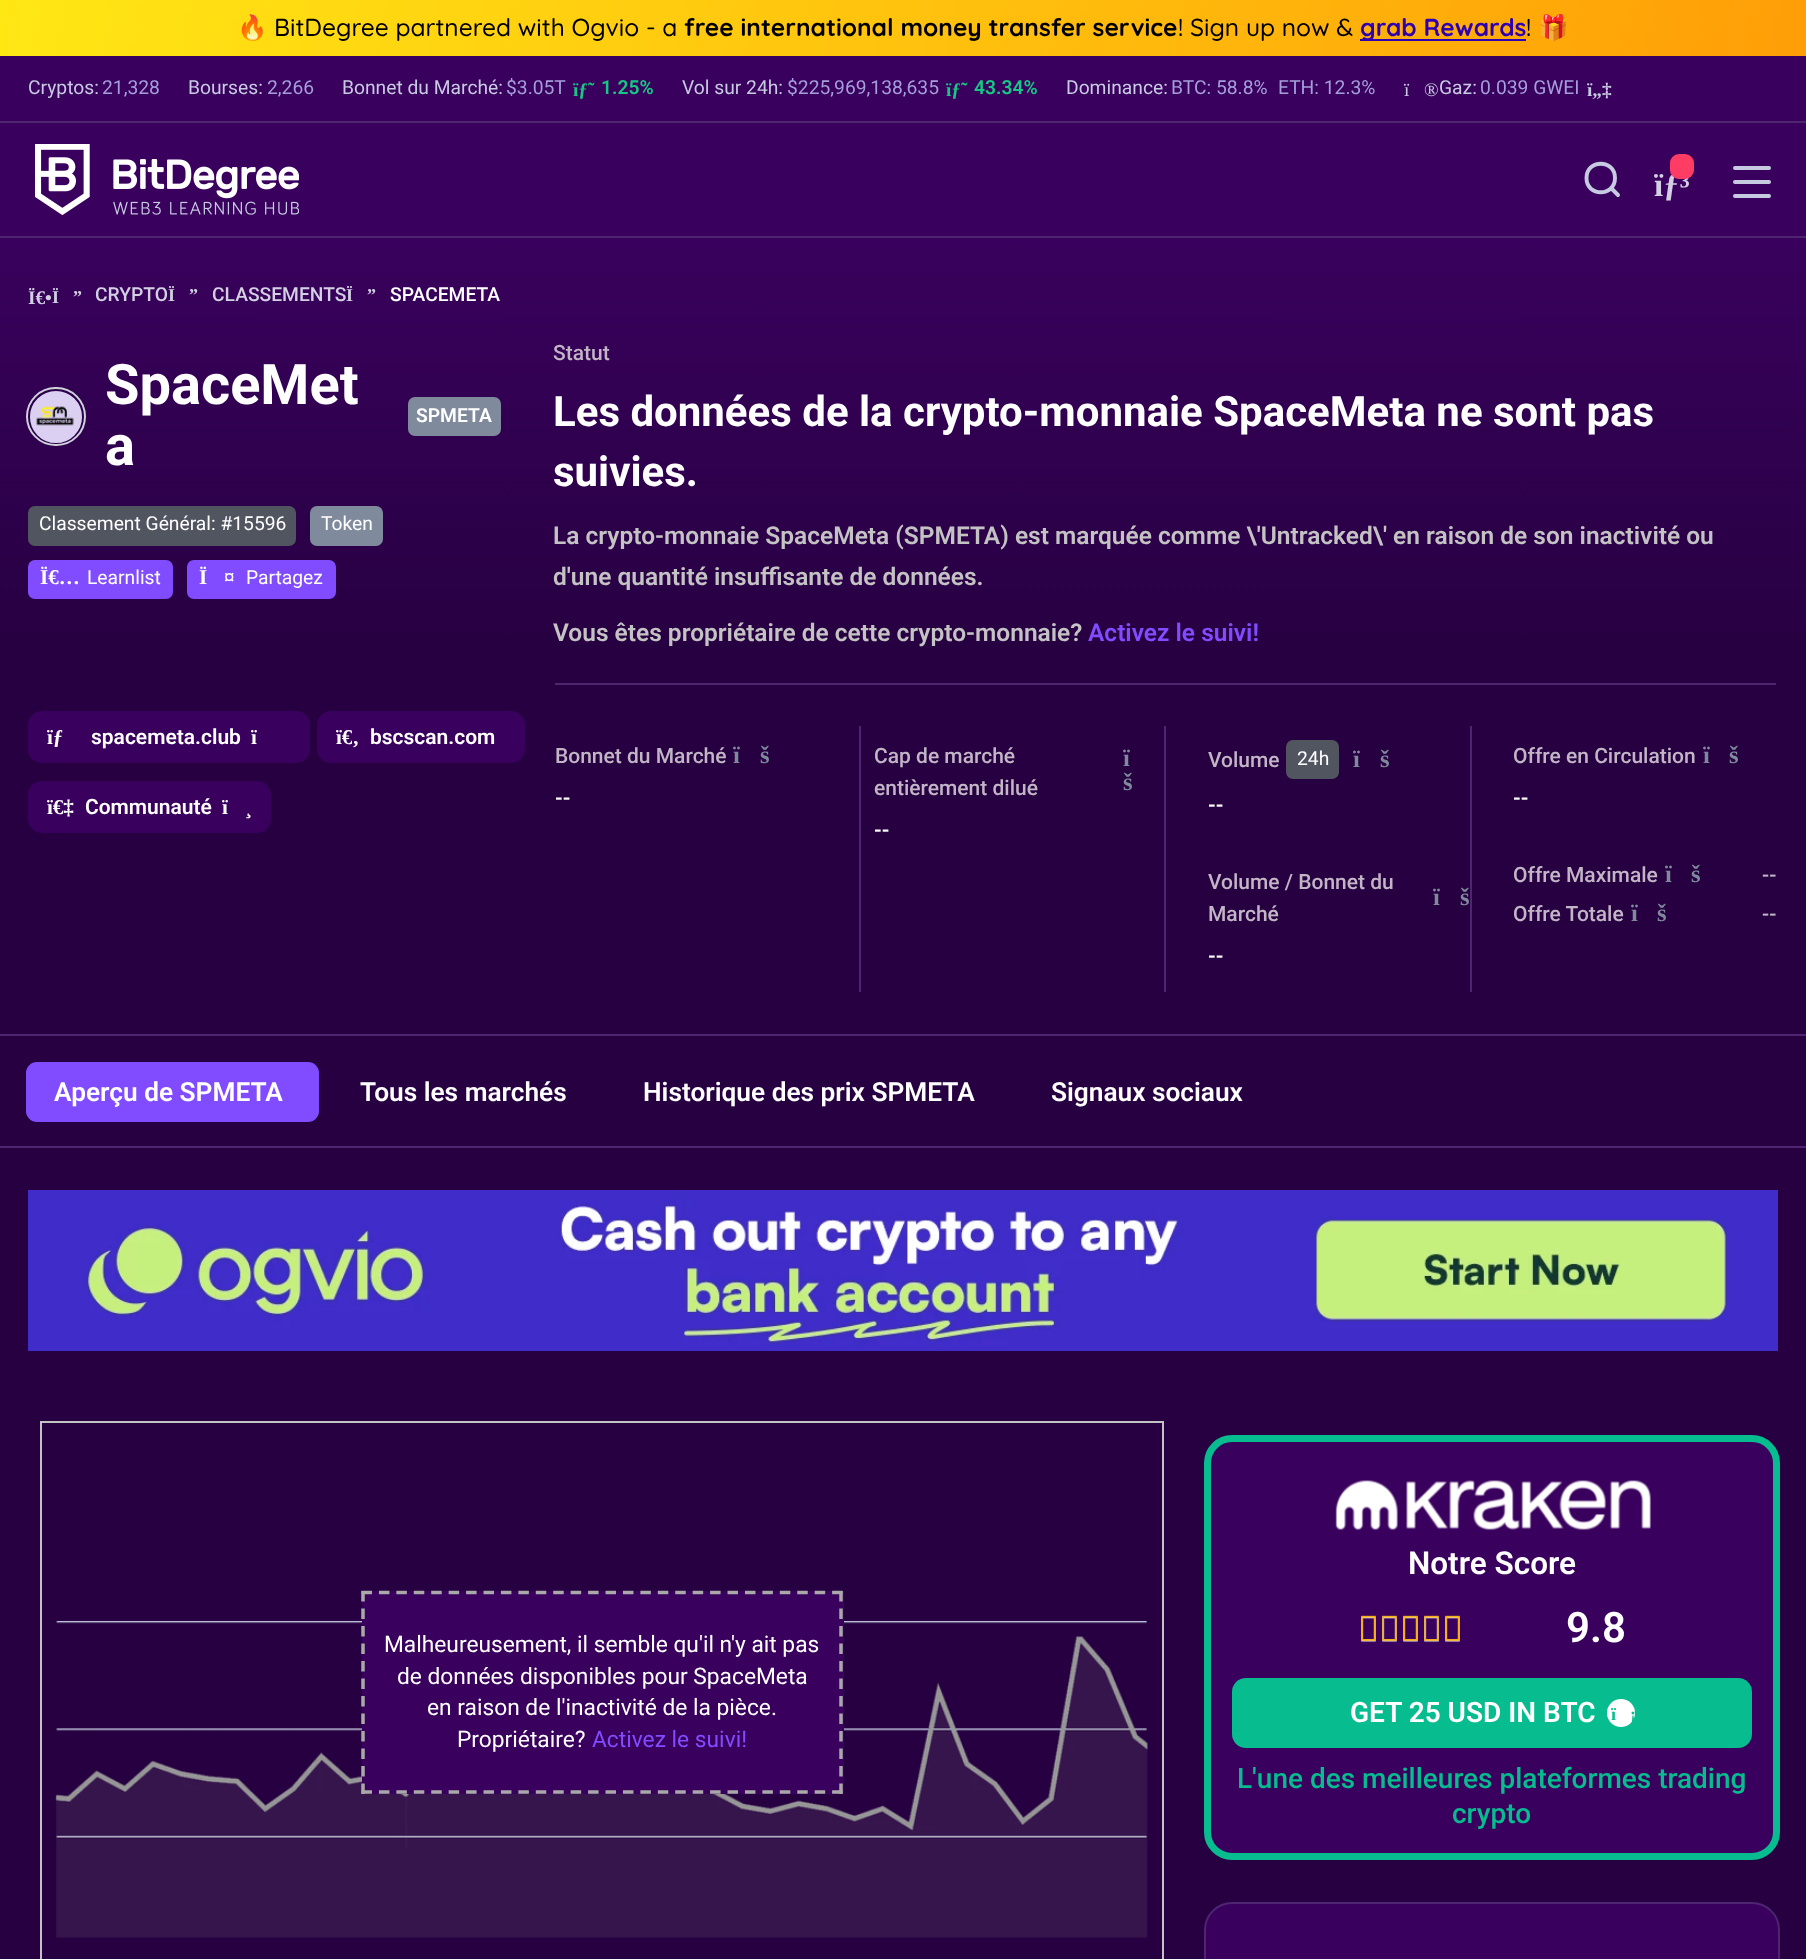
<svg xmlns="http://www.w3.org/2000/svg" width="1806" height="1959">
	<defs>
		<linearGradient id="g1" gradientUnits="userSpaceOnUse" x1="26" y1="-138" x2="1780" y2="194"><stop offset="0" stop-color="#FFE714" /><stop offset="1" stop-color="#FF9E07" /></linearGradient>
		<linearGradient id="g2" gradientUnits="userSpaceOnUse" x1="903" y1="238" x2="903" y2="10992"><stop offset="0" stop-color="#39015D" /><stop offset="0.04" stop-color="#260040" /></linearGradient>
	</defs>
	<rect width="100%" height="100%" fill="#FFFFFF" />
	<rect x="0" y="0" width="1806" height="56" fill="url(#g1)" />
	<text x="237" y="36" font-family="Noto Color Emoji" font-size="24.5" fill="#000000">🔥</text>
	<text x="274" y="36" font-family="Quicksand" font-size="24.5" font-weight="500" fill="#000000">BitDegree partnered with Ogvio - a</text>
	<text x="684" y="36" font-family="Quicksand" font-size="24.5" font-weight="700" fill="#000000">free international money transfer service</text>
	<text x="1178" y="36" font-family="Quicksand" font-size="24.5" font-weight="500" fill="#000000">! Sign up now &amp;</text>
	<rect x="1360" y="39" width="166" height="2" fill="#2F00B2" />
	<text x="1360" y="36" font-family="Quicksand" font-size="24.5" font-weight="700" fill="#2F00B2">grab Rewards</text>
	<text x="1526" y="36" font-family="Quicksand" font-size="24.5" font-weight="500" fill="#000000">!</text>
	<text x="1538" y="36" font-family="Noto Color Emoji" font-size="24.5" fill="#000000">🎁</text>
	<rect x="0" y="56" width="1806" height="65" fill="#39015D" />
	<rect x="0" y="121" width="1806" height="2" fill="#4F2572" />
	<text x="28" y="94" font-family="Roboto" font-size="19.25" fill="#C7CBE2">Cryptos:</text>
	<text x="102" y="94" font-family="Roboto" font-size="19.25" fill="#A49FDB">21,328</text>
	<text x="188" y="94" font-family="Roboto" font-size="19.25" fill="#C7CBE2">Bourses:</text>
	<text x="267" y="94" font-family="Roboto" font-size="19.25" fill="#A49FDB">2,266</text>
	<text x="342" y="94" font-family="Roboto" font-size="19.25" fill="#C7CBE2">Bonnet du Marché:</text>
	<text x="506" y="94" font-family="Roboto" font-size="19.25" fill="#A49FDB">$3.05T</text>
	<text x="573" y="96" font-family="Liberation Serif" font-size="19.25" font-weight="700" fill="#17C783">ïƒ˜</text>
	<text x="601" y="94" font-family="Roboto" font-size="19.25" font-weight="600" fill="#17C783">1.25%</text>
	<text x="682" y="94" font-family="Roboto" font-size="19.25" fill="#C7CBE2">Vol sur 24h:</text>
	<text x="787" y="94" font-family="Roboto" font-size="19.25" fill="#A49FDB">$225,969,138,635</text>
	<text x="946" y="96" font-family="Liberation Serif" font-size="19.25" font-weight="700" fill="#17C783">ïƒ˜</text>
	<text x="974" y="94" font-family="Roboto" font-size="19.25" font-weight="600" fill="#17C783">43.34%</text>
	<text x="1066" y="94" font-family="Roboto" font-size="19.25" fill="#C7CBE2">Dominance:</text>
	<g font-family="Roboto" font-size="19.25" fill="#A49FDB">
		<text x="1171" y="94">BTC: 58.8%</text>
		<text x="1278" y="94">ETH: 12.3%</text>
	</g>
	<g font-family="Liberation Serif" font-size="19.25" fill="#C7CBE2">
		<text x="1404" y="96">ï</text>
		<text x="1424" y="96">®</text>
	</g>
	<text x="1439" y="94" font-family="Roboto" font-size="19.25" fill="#C7CBE2">Gaz:</text>
	<text x="1480" y="94" font-family="Roboto" font-size="19.25" fill="#A49FDB">0.039 GWEI</text>
	<text x="1587" y="96" font-family="Liberation Serif" font-size="19.25" font-weight="700" fill="#C7CBE2">ï„‡</text>
	<rect x="0" y="123" width="1806" height="113" fill="#39015D" />
	<image x="35" y="144" width="264" height="71" href="assets/img1.png" />
	<path d="M1611 188L1618 195M1615 178C1615 197 1586.5 197 1586.5 178C1586.5 159 1615 159 1615 178Z" fill="none" stroke="#C7CBE2" stroke-width="3.9" stroke-linecap="round" stroke-linejoin="round" />
	<text x="1654" y="196" font-family="Liberation Serif" font-size="33" font-weight="700" fill="#D2D0E2">ïƒ³</text>
	<rect x="1670" y="154" width="24" height="25" rx="9" fill="#FF3D64" />
	<rect x="1733" y="180" width="38" height="4" rx="2" fill="#C7CBE2" />
	<rect x="1733" y="166" width="38" height="4" rx="2" fill="#C7CBE2" />
	<rect x="1733" y="194" width="38" height="4" rx="2" fill="#C7CBE2" />
	<rect x="0" y="238" width="1806" height="1721" fill="url(#g2)" />
	<rect x="0" y="236" width="1806" height="2" fill="#4F2572" />
	<text x="28" y="304" font-family="Liberation Serif" font-size="19.25" font-weight="700" fill="#D2D0E2">Ï€•</text>
	<g font-family="Liberation Serif" font-size="18" font-weight="700" fill="#D2D0E2">
		<text x="52" y="303">Ï</text>
		<text x="73" y="303">”</text>
	</g>
	<text x="95" y="301" font-family="Roboto" font-size="19.25" font-weight="500" fill="#D2D0E2">CRYPTO</text>
	<g font-family="Liberation Serif" font-size="18" font-weight="700" fill="#D2D0E2">
		<text x="168" y="301">Ï</text>
		<text x="189" y="301">”</text>
	</g>
	<text x="212" y="301" font-family="Roboto" font-size="19.25" font-weight="500" fill="#D2D0E2">CLASSEMENTS</text>
	<g font-family="Liberation Serif" font-size="18" font-weight="700" fill="#D2D0E2">
		<text x="346" y="301">Ï</text>
		<text x="367" y="301">”</text>
	</g>
	<text x="390" y="301" font-family="Roboto" font-size="19.25" font-weight="500" fill="#FFFFFF">SPACEMETA</text>
	<circle cx="56" cy="417" r="27" fill="#DBD0F1" stroke="#2C004B" stroke-width="2" />
	<image x="36" y="406" width="38" height="20" href="assets/img2.png" />
	<rect x="27" y="388" width="58" height="57" rx="28.5" fill="none" stroke="#CED4DA" stroke-width="2" />
	<g font-family="Roboto" font-size="56" font-weight="700" fill="#FFFFFF">
		<text x="105" y="404">SpaceMet</text>
		<text x="105" y="465">a</text>
	</g>
	<rect x="408" y="397" width="93" height="39" rx="7" fill="#808A9D" />
	<text x="416" y="422" font-family="Roboto" font-size="19.25" font-weight="600" fill="#FFFFFF">SPMETA</text>
	<rect x="28" y="506" width="268" height="40" rx="7" fill="#515560" />
	<text x="39" y="530" font-family="Roboto" font-size="19.25" fill="#FFFFFF">Classement Général: #15596</text>
	<rect x="310" y="506" width="73" height="40" rx="7" fill="#808A9D" />
	<text x="321" y="530" font-family="Roboto" font-size="19.25" fill="#FFFFFF">Token</text>
	<rect x="29" y="561" width="143" height="37" rx="6" fill="#814CFF" stroke="#814CFF" stroke-width="2" />
	<text x="40" y="584" font-family="Liberation Serif" font-size="21" font-weight="700" fill="#FFFFFF">Ï€…</text>
	<text x="87" y="584" font-family="Roboto" font-size="19.25" fill="#FFFFFF">Learnlist</text>
	<rect x="188" y="561" width="147" height="37" rx="6" fill="#814CFF" stroke="#814CFF" stroke-width="2" />
	<g font-family="Liberation Serif" font-size="21" font-weight="700" fill="#FFFFFF">
		<text x="199" y="584">Ï</text>
		<text x="224" y="584">¤</text>
	</g>
	<text x="246" y="584" font-family="Roboto" font-size="19.25" fill="#FFFFFF">Partagez</text>
	<text x="553" y="360" font-family="Roboto" font-size="21" font-weight="500" fill="#C2B5C6">Statut</text>
	<g font-family="Roboto" font-size="42" font-weight="700" fill="#FFFFFF">
		<text x="553" y="426">Les données de la crypto-monnaie SpaceMeta ne sont pas</text>
		<text x="553" y="486">suivies.</text>
	</g>
	<g font-family="Roboto" font-size="24.5" font-weight="600" fill="#C4C3C3">
		<text x="553" y="544">La crypto-monnaie SpaceMeta (SPMETA) est marquée comme \'Untracked\' en raison de son inactivité ou</text>
		<text x="553" y="585">d'une quantité insuffisante de données.</text>
		<text x="553" y="641">Vous êtes propriétaire de cette crypto-monnaie?</text>
	</g>
	<text x="1088" y="641" font-family="Roboto" font-size="24.5" font-weight="600" fill="#814CFF">Activez le suivi!</text>
	<rect x="28" y="711" width="282" height="52" rx="14" fill="#39015D" />
	<text x="47" y="744" font-family="Liberation Serif" font-size="21" font-weight="700" fill="#FFFFFF">ïƒ</text>
	<text x="91" y="744" font-family="Roboto" font-size="21" font-weight="600" fill="#FFFFFF">spacemeta.club</text>
	<text x="251" y="744" font-family="Liberation Serif" font-size="21" font-weight="700" fill="#FFFFFF">ï</text>
	<rect x="317" y="711" width="208" height="52" rx="14" fill="#39015D" />
	<text x="336" y="744" font-family="Liberation Serif" font-size="21" font-weight="700" fill="#FFFFFF">ï€‚</text>
	<text x="370" y="744" font-family="Roboto" font-size="21" font-weight="600" fill="#FFFFFF">bscscan.com</text>
	<rect x="28" y="781" width="243" height="52" rx="14" fill="#39015D" />
	<text x="47" y="814" font-family="Liberation Serif" font-size="21" font-weight="700" fill="#FFFFFF">ï€‡</text>
	<text x="85" y="814" font-family="Roboto" font-size="21" font-weight="600" fill="#FFFFFF">Communauté</text>
	<g font-family="Liberation Serif" font-size="21" font-weight="700" fill="#FFFFFF">
		<text x="222" y="814">ï</text>
		<text x="245" y="814">¸</text>
	</g>
	<rect x="555" y="683" width="1221" height="2" fill="#4F2572" />
	<rect x="859" y="726" width="2" height="266" fill="#4F2572" />
	<text x="555" y="763" font-family="Roboto" font-size="21" font-weight="500" fill="#C2B5C6">Bonnet du Marché</text>
	<g font-family="Liberation Serif" font-size="24.5" font-weight="700" fill="#808A9D">
		<text x="733" y="763">ï</text>
		<text x="760" y="763">š</text>
	</g>
	<text x="555" y="805" font-family="Roboto" font-size="21" font-weight="600" fill="#FFFFFF">--</text>
	<rect x="1164" y="726" width="2" height="266" fill="#4F2572" />
	<text x="874" y="763" font-family="Roboto" font-size="21" font-weight="500" fill="#C2B5C6">Cap de marché</text>
	<g font-family="Liberation Serif" font-size="24.5" font-weight="700" fill="#808A9D">
		<text x="1123" y="766">ï</text>
		<text x="1123" y="790">š</text>
	</g>
	<text x="874" y="795" font-family="Roboto" font-size="21" font-weight="500" fill="#C2B5C6">entièrement dilué</text>
	<text x="874" y="837" font-family="Roboto" font-size="21" font-weight="600" fill="#FFFFFF">--</text>
	<rect x="1470" y="726" width="2" height="266" fill="#4F2572" />
	<text x="1208" y="767" font-family="Roboto" font-size="21" font-weight="500" fill="#C2B5C6">Volume</text>
	<rect x="1286" y="740" width="53" height="39" rx="7" fill="#515560" />
	<text x="1297" y="765" font-family="Roboto" font-size="19.25" fill="#FFFFFF">24h</text>
	<g font-family="Liberation Serif" font-size="24.5" font-weight="700" fill="#808A9D">
		<text x="1353" y="767">ï</text>
		<text x="1380" y="767">š</text>
	</g>
	<text x="1208" y="812" font-family="Roboto" font-size="21" font-weight="600" fill="#FFFFFF">--</text>
	<text x="1208" y="889" font-family="Roboto" font-size="21" font-weight="500" fill="#C2B5C6">Volume / Bonnet du</text>
	<g font-family="Liberation Serif" font-size="24.5" font-weight="700" fill="#808A9D">
		<text x="1433" y="905">ï</text>
		<text x="1460" y="905">š</text>
	</g>
	<text x="1208" y="921" font-family="Roboto" font-size="21" font-weight="500" fill="#C2B5C6">Marché</text>
	<text x="1208" y="963" font-family="Roboto" font-size="21" font-weight="600" fill="#FFFFFF">--</text>
	<text x="1513" y="763" font-family="Roboto" font-size="21" font-weight="500" fill="#C2B5C6">Offre en Circulation</text>
	<g font-family="Liberation Serif" font-size="24.5" font-weight="700" fill="#808A9D">
		<text x="1703" y="763">ï</text>
		<text x="1729" y="763">š</text>
	</g>
	<text x="1513" y="805" font-family="Roboto" font-size="21" font-weight="600" fill="#FFFFFF">--</text>
	<text x="1513" y="882" font-family="Roboto" font-size="21" font-weight="500" fill="#C2B5C6">Offre Maximale</text>
	<g font-family="Liberation Serif" font-size="24.5" font-weight="700" fill="#808A9D">
		<text x="1665" y="882">ï</text>
		<text x="1691" y="882">š</text>
	</g>
	<g font-family="Roboto" font-size="21" font-weight="500" fill="#C2B5C6">
		<text x="1762" y="882">--</text>
		<text x="1513" y="921">Offre Totale</text>
	</g>
	<g font-family="Liberation Serif" font-size="24.5" font-weight="700" fill="#808A9D">
		<text x="1631" y="921">ï</text>
		<text x="1657" y="921">š</text>
	</g>
	<text x="1762" y="921" font-family="Roboto" font-size="21" font-weight="500" fill="#C2B5C6">--</text>
	<rect x="0" y="1034" width="1806" height="2" fill="#4F2572" />
	<rect x="0" y="1146" width="1806" height="2" fill="#4F2572" />
	<rect x="26" y="1062" width="293" height="60" rx="11" fill="#814CFF" />
	<g font-family="Roboto" font-size="26.25" font-weight="600" fill="#FFFFFF">
		<text x="54" y="1101">Aperçu de SPMETA</text>
		<text x="360" y="1101">Tous les marchés</text>
		<text x="643" y="1101">Historique des prix SPMETA</text>
		<text x="1051" y="1101">Signaux sociaux</text>
	</g>
	<image x="28" y="1190" width="1750" height="161" href="assets/img3.png" />
	<rect x="41" y="1422" width="1122" height="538" fill="none" stroke="#C4C3C3" stroke-width="2" />
	<image x="55" y="1620" width="1093" height="318" href="assets/img4.png" />
	<rect x="362" y="1591" width="482" height="203" fill="#39015D" />
	<path d="M361.5 1592.5H842.5" fill="none" stroke="#A9A9A9" stroke-width="3.5" stroke-dasharray="10.5 6.93" />
	<path d="M841 1591V1794" fill="none" stroke="#A9A9A9" stroke-width="3.5" stroke-dasharray="10.5 7" />
	<path d="M361.5 1792H842.5" fill="none" stroke="#A9A9A9" stroke-width="3.5" stroke-dasharray="10.5 6.93" />
	<path d="M363 1591V1794" fill="none" stroke="#A9A9A9" stroke-width="3.5" stroke-dasharray="10.5 7" />
	<g font-family="Roboto" font-size="22.75" fill="#FFFFFF">
		<text x="384" y="1652">Malheureusement, il semble qu'il n'y ait pas</text>
		<text x="397" y="1684">de données disponibles pour SpaceMeta</text>
		<text x="427" y="1715">en raison de l'inactivité de la pièce.</text>
		<text x="457" y="1747">Propriétaire?</text>
	</g>
	<text x="592" y="1747" font-family="Roboto" font-size="22.75" fill="#814CFF">Activez le suivi!</text>
	<rect x="1207.5" y="1438.5" width="569" height="418" rx="24.5" fill="#39015D" stroke="#07BC8E" stroke-width="7" />
	<image x="1335" y="1480" width="316" height="50" href="assets/img5.png" />
	<text x="1408" y="1574" font-family="Roboto" font-size="31.5" font-weight="600" fill="#FFFFFF">Notre Score</text>
	<image x="1361" y="1616" width="99" height="26" href="assets/img7.png" />
	<image x="1361" y="1615" width="99" height="26" href="assets/img6.png" />
	<text x="1566" y="1642" font-family="Roboto" font-size="42" font-weight="600" fill="#FFFFFF">9.8</text>
	<rect x="1232" y="1678" width="520" height="70" rx="14" fill="#07BC8E" />
	<text x="1350" y="1722" font-family="Roboto" font-size="28" font-weight="600" fill="#FFFFFF">GET 25 USD IN BTC</text>
	<circle cx="1621" cy="1713" r="14" fill="#FFFFFF" />
	<g font-family="Liberation Serif" font-size="18" font-weight="700" fill="#07BC8E">
		<text x="1611" y="1720">ï</text>
		<text x="1630" y="1720">¡</text>
	</g>
	<g font-family="Roboto" font-size="28" font-weight="500" fill="#07BC8E">
		<text x="1237" y="1788">L'une des meilleures plateformes trading</text>
		<text x="1452" y="1823">crypto</text>
	</g>
	<rect x="1205" y="1903" width="574" height="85" rx="27" fill="#39015D" stroke="#4F2572" stroke-width="2" />
</svg>
